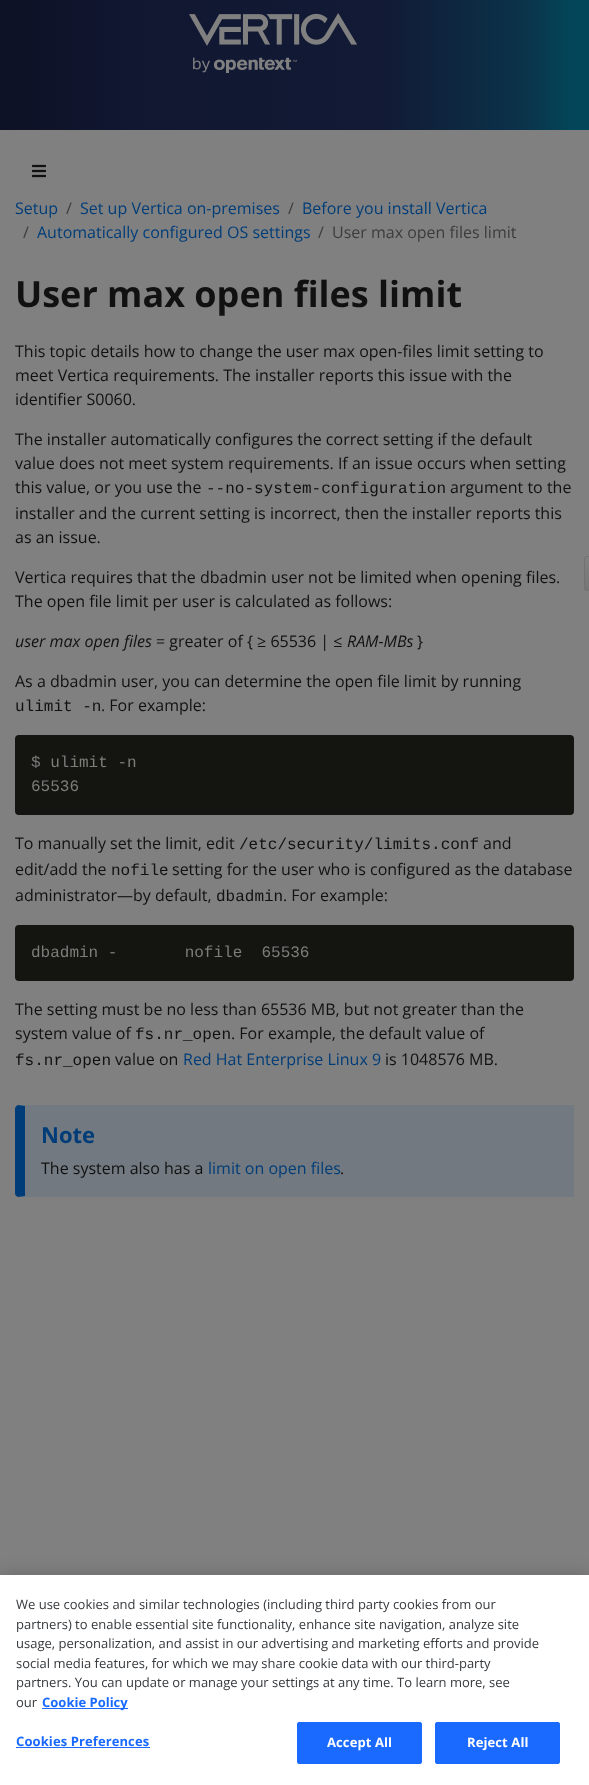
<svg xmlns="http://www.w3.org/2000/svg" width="589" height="1785">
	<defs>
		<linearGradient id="g1" gradientUnits="userSpaceOnUse" x1="0" y1="65" x2="589" y2="65"><stop offset="0" stop-color="#0D1125" /><stop offset="0.22" stop-color="#111731" /><stop offset="0.65" stop-color="#121A35" /><stop offset="0.89" stop-color="#0A334A" /><stop offset="0.97" stop-color="#044659" /></linearGradient>
		<clipPath id="clip1"><rect x="584" y="556" width="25" height="35" rx="3" /></clipPath>
		<linearGradient id="g2" gradientUnits="userSpaceOnUse" x1="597" y1="557" x2="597" y2="590"><stop offset="0" stop-color="#808080" /><stop offset="1" stop-color="#767676" /></linearGradient>
	</defs>
	<rect width="100%" height="100%" fill="#808080" />
	<rect x="0" y="0" width="589" height="130" fill="url(#g1)" />
	<image x="189" y="13" width="168" height="60" href="assets/img1.png" />
	<g clip-path="url(#clip1)">
		<rect x="584" y="557" width="5" height="33" fill="url(#g2)" />
	</g>
	<rect x="584.5" y="556.5" width="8" height="34" rx="2.5" fill="none" stroke="#717171" />
	<image x="32" y="164" width="14" height="14" href="assets/img2.png" />
	<text x="15" y="214" font-family="Open Sans" font-size="16" fill="#003D78">Setup</text>
	<text x="66" y="214" font-family="Open Sans" font-size="16" fill="#3D3B3B">/</text>
	<text x="80" y="214" font-family="Open Sans" font-size="16" fill="#003D78">Set up Vertica on-premises</text>
	<text x="288" y="214" font-family="Open Sans" font-size="16" fill="#3D3B3B">/</text>
	<text x="302" y="214" font-family="Open Sans" font-size="16" fill="#003D78">Before you install Vertica</text>
	<text x="23" y="238" font-family="Open Sans" font-size="16" fill="#3D3B3B">/</text>
	<text x="37" y="238" font-family="Open Sans" font-size="16" fill="#003D78">Automatically configured OS settings</text>
	<g font-family="Open Sans" font-size="16" fill="#3D3B3B">
		<text x="318" y="238">/</text>
		<text x="332" y="238">User max open files limit</text>
	</g>
	<text x="15" y="307" font-family="Open Sans" font-size="36" font-weight="700" fill="#111111">User max open files limit</text>
	<g font-family="Open Sans" font-size="16" fill="#111111">
		<text x="15" y="357">This topic details how to change the user max open-files limit setting to</text>
		<text x="15" y="381">meet Vertica requirements. The installer reports this issue with the</text>
		<text x="15" y="405">identifier S0060.</text>
		<text x="15" y="445">The installer automatically configures the correct setting if the default</text>
		<text x="15" y="469">value does not meet system requirements. If an issue occurs when setting</text>
		<text x="15" y="493">this value, or you use the</text>
	</g>
	<text x="206" y="493" font-family="Liberation Mono" font-size="16" fill="#111111">--no-system-configuration</text>
	<g font-family="Open Sans" font-size="16" fill="#111111">
		<text x="450" y="493">argument to the</text>
		<text x="15" y="519">installer and the current setting is incorrect, then the installer reports this</text>
		<text x="15" y="543">as an issue.</text>
		<text x="15" y="583">Vertica requires that the dbadmin user not be limited when opening files.</text>
		<text x="15" y="607">The open file limit per user is calculated as follows:</text>
	</g>
	<text x="15" y="647" font-family="Open Sans" font-size="16" font-style="italic" fill="#111111">user max open files</text>
	<text x="156" y="647" font-family="Open Sans" font-size="16" fill="#111111">= greater of { ≥ 65536 | ≤</text>
	<text x="347" y="647" font-family="Open Sans" font-size="16" font-style="italic" fill="#111111">RAM-MBs</text>
	<g font-family="Open Sans" font-size="16" fill="#111111">
		<text x="417" y="647">}</text>
		<text x="15" y="687">As a dbadmin user, you can determine the open file limit by running</text>
	</g>
	<text x="15" y="711" font-family="Liberation Mono" font-size="16" fill="#111111">ulimit -n</text>
	<text x="101" y="711" font-family="Open Sans" font-size="16" fill="#111111">. For example:</text>
	<rect x="15" y="735" width="559" height="80" rx="4" fill="#141411" />
	<g font-family="Liberation Mono" font-size="16" fill="#7C7C79">
		<text x="31" y="767">$ ulimit -n</text>
		<text x="31" y="791">65536</text>
	</g>
	<text x="15" y="849" font-family="Open Sans" font-size="16" fill="#111111">To manually set the limit, edit</text>
	<text x="239" y="849" font-family="Liberation Mono" font-size="16" fill="#111111">/etc/security/limits.conf</text>
	<g font-family="Open Sans" font-size="16" fill="#111111">
		<text x="483" y="849">and</text>
		<text x="15" y="875">edit/add the</text>
	</g>
	<text x="111" y="875" font-family="Liberation Mono" font-size="16" fill="#111111">nofile</text>
	<g font-family="Open Sans" font-size="16" fill="#111111">
		<text x="172" y="875">setting for the user who is configured as the database</text>
		<text x="15" y="901">administrator—by default,</text>
	</g>
	<text x="216" y="901" font-family="Liberation Mono" font-size="16" fill="#111111">dbadmin</text>
	<text x="283" y="901" font-family="Open Sans" font-size="16" fill="#111111">. For example:</text>
	<rect x="15" y="925" width="559" height="56" rx="4" fill="#141411" />
	<text x="31" y="957" font-family="Liberation Mono" font-size="16" fill="#7C7C79" xml:space="preserve">dbadmin -       nofile  65536</text>
	<g font-family="Open Sans" font-size="16" fill="#111111">
		<text x="15" y="1015">The setting must be no less than 65536 MB, but not greater than the</text>
		<text x="15" y="1039">system value of</text>
	</g>
	<text x="135" y="1039" font-family="Liberation Mono" font-size="16" fill="#111111">fs.nr_open</text>
	<text x="231" y="1039" font-family="Open Sans" font-size="16" fill="#111111">. For example, the default value of</text>
	<text x="15" y="1065" font-family="Liberation Mono" font-size="16" fill="#111111">fs.nr_open</text>
	<text x="115" y="1065" font-family="Open Sans" font-size="16" fill="#111111">value on</text>
	<text x="183" y="1065" font-family="Open Sans" font-size="16" fill="#003D78">Red Hat Enterprise Linux 9</text>
	<text x="385" y="1065" font-family="Open Sans" font-size="16" fill="#111111">is 1048576 MB.</text>
	<path d="M19 1105H574V1197H19C17 1197 15 1195 15 1193V1109C15 1107 17 1105 19 1105Z" fill="#727980" />
	<path d="M25 1106L18 1105C16 1106 15 1107 15 1109V1193C15 1195 16 1196 18 1197L25 1196Z" fill="#003D78" />
	<text x="41" y="1143" font-family="Open Sans" font-size="22" font-weight="700" fill="#003D78">Note</text>
	<text x="41" y="1174" font-family="Open Sans" font-size="16" fill="#111111">The system also has a</text>
	<text x="208" y="1174" font-family="Open Sans" font-size="16" fill="#003D78">limit on open files</text>
	<text x="340" y="1174" font-family="Open Sans" font-size="16" fill="#111111">.</text>
	<rect x="0" y="1575" width="589" height="210" fill="#000000" fill-opacity="0.2" filter="blur(9px)" />
	<rect x="0" y="1575" width="589" height="210" fill="#FFFFFF" />
	<g font-family="Open Sans" font-size="13" fill="#35393D">
		<text x="16" y="1609">We use cookies and similar technologies (including third party cookies from our</text>
		<text x="16" y="1629">partners) to enable essential site functionality, enhance site navigation, analyze site</text>
		<text x="16" y="1648">usage, personalization, and assist in our advertising and marketing efforts and provide</text>
		<text x="16" y="1668">social media features, for which we may share cookie data with our third-party</text>
		<text x="16" y="1687">partners. You can update or manage your settings at any time. To learn more, see</text>
		<text x="16" y="1707">our</text>
	</g>
	<rect x="42" y="1708" width="86" height="1" fill="#1A6AFF" />
	<text x="42" y="1707" font-family="Open Sans" font-size="13" font-weight="700" fill="#1A6AFF">Cookie Policy</text>
	<text x="16" y="1746" font-family="Open Sans" font-size="13" font-weight="700" letter-spacing="0.1" fill="#1A6AFF">Cookies Preferences</text>
	<rect x="16" y="1747" width="134" height="1" fill="#1A6AFF" />
	<rect x="297.5" y="1722.5" width="124" height="41" rx="1.5" fill="#1A6AFF" stroke="#1A6AFF" />
	<text x="327" y="1747" font-family="Open Sans" font-size="13" font-weight="700" letter-spacing="0.1" fill="#FFFFFF">Accept All</text>
	<rect x="435.5" y="1722.5" width="124" height="41" rx="1.5" fill="#1A6AFF" stroke="#1A6AFF" />
	<text x="467" y="1747" font-family="Open Sans" font-size="13" font-weight="700" letter-spacing="0.1" fill="#FFFFFF">Reject All</text>
</svg>
